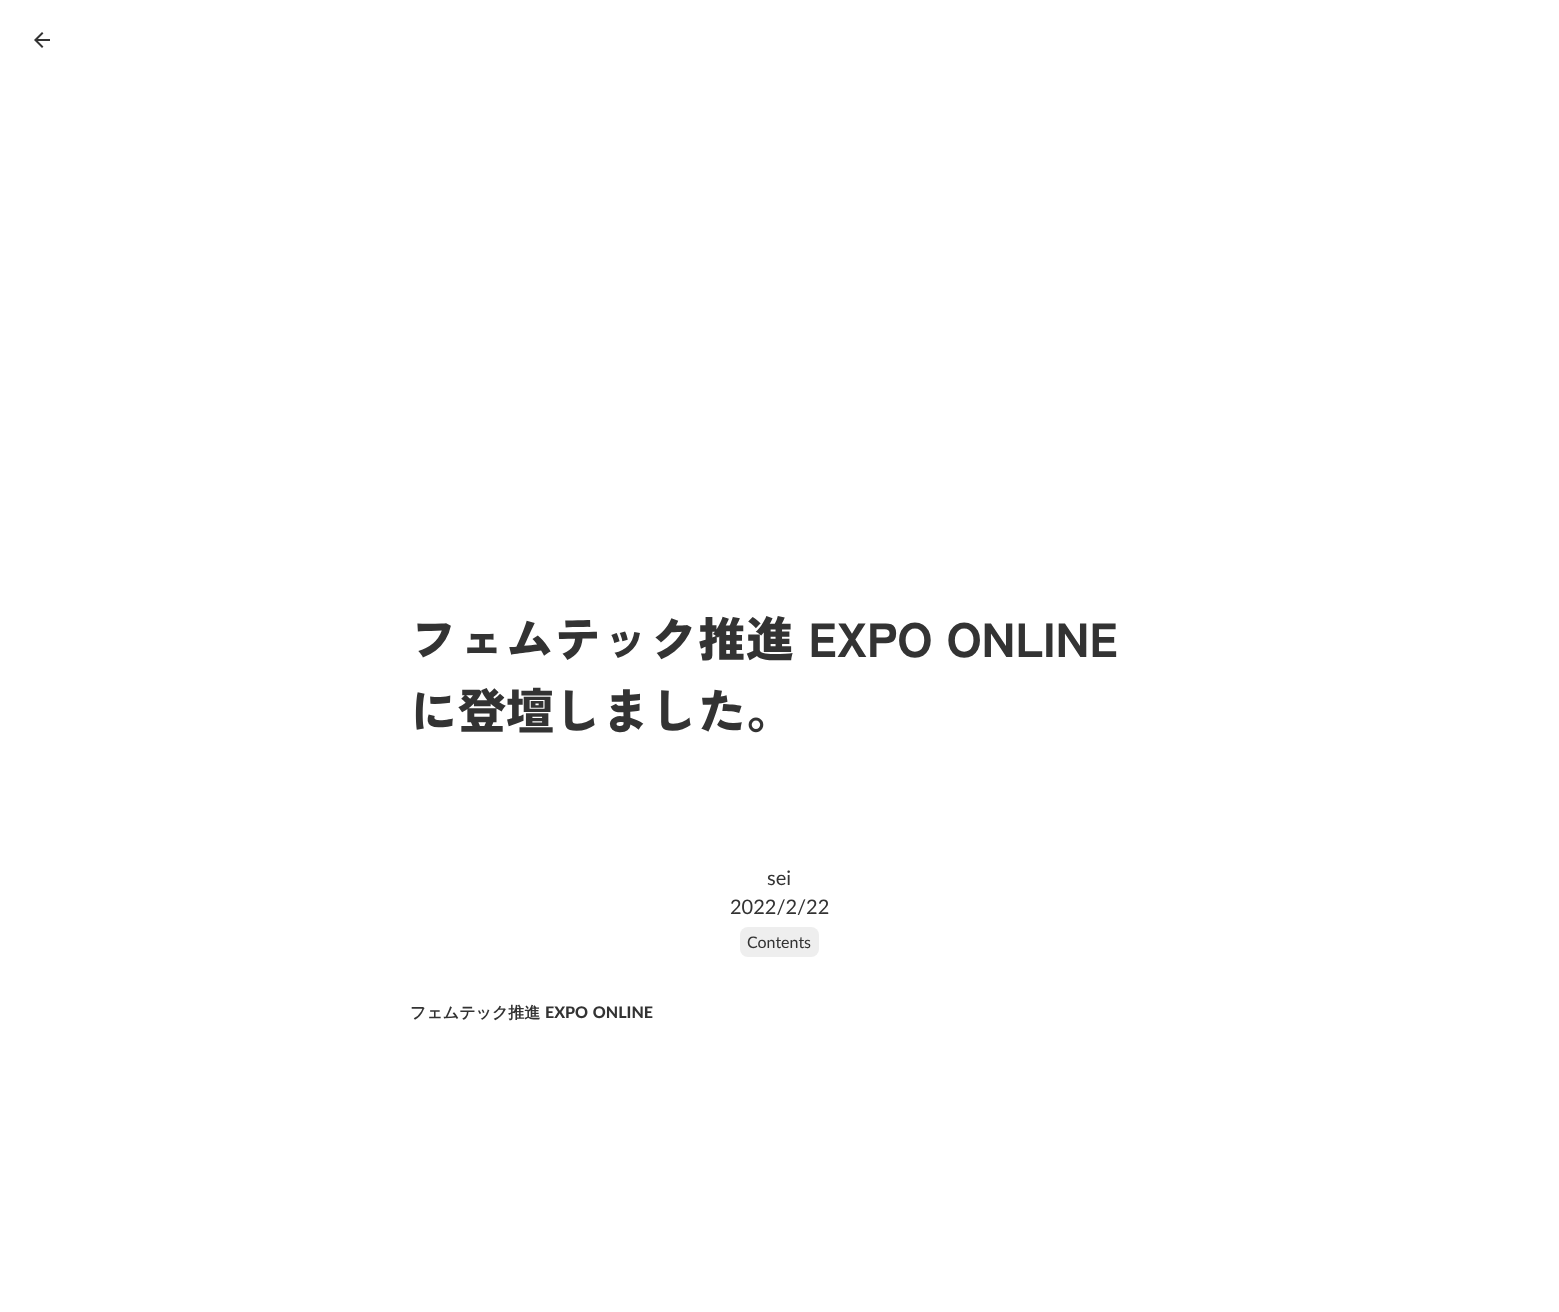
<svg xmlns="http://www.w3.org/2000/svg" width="1559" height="1312">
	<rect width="100%" height="100%" fill="#FFFFFF" />
	<image x="34" y="32" width="16" height="16" href="assets/img1.png" />
	<g font-family="Zen Kaku Gothic New" font-size="48" font-weight="900" fill="#333333">
		<text x="410" y="657" word-spacing="1">フェムテック推進 EXPO ONLINE</text>
		<text x="410" y="729">に登壇しました。</text>
	</g>
	<g font-family="Lato" font-size="20" fill="#333333">
		<text x="767" y="885">sei</text>
		<text x="730" y="914">2022/2/22</text>
	</g>
	<rect x="740" y="927" width="79" height="30" rx="8" fill="#EEEEEE" />
	<text x="747" y="948" font-family="Lato" font-size="16" fill="#333333">Contents</text>
	<text x="410" y="1018" font-family="WenQuanYi Zen Hei" font-size="16" font-weight="700" fill="#333333">フェムテック推進</text>
	<text x="545" y="1018" word-spacing="1" font-family="Lato" font-size="16" font-weight="900" fill="#333333">EXPO ONLINE</text>
</svg>
